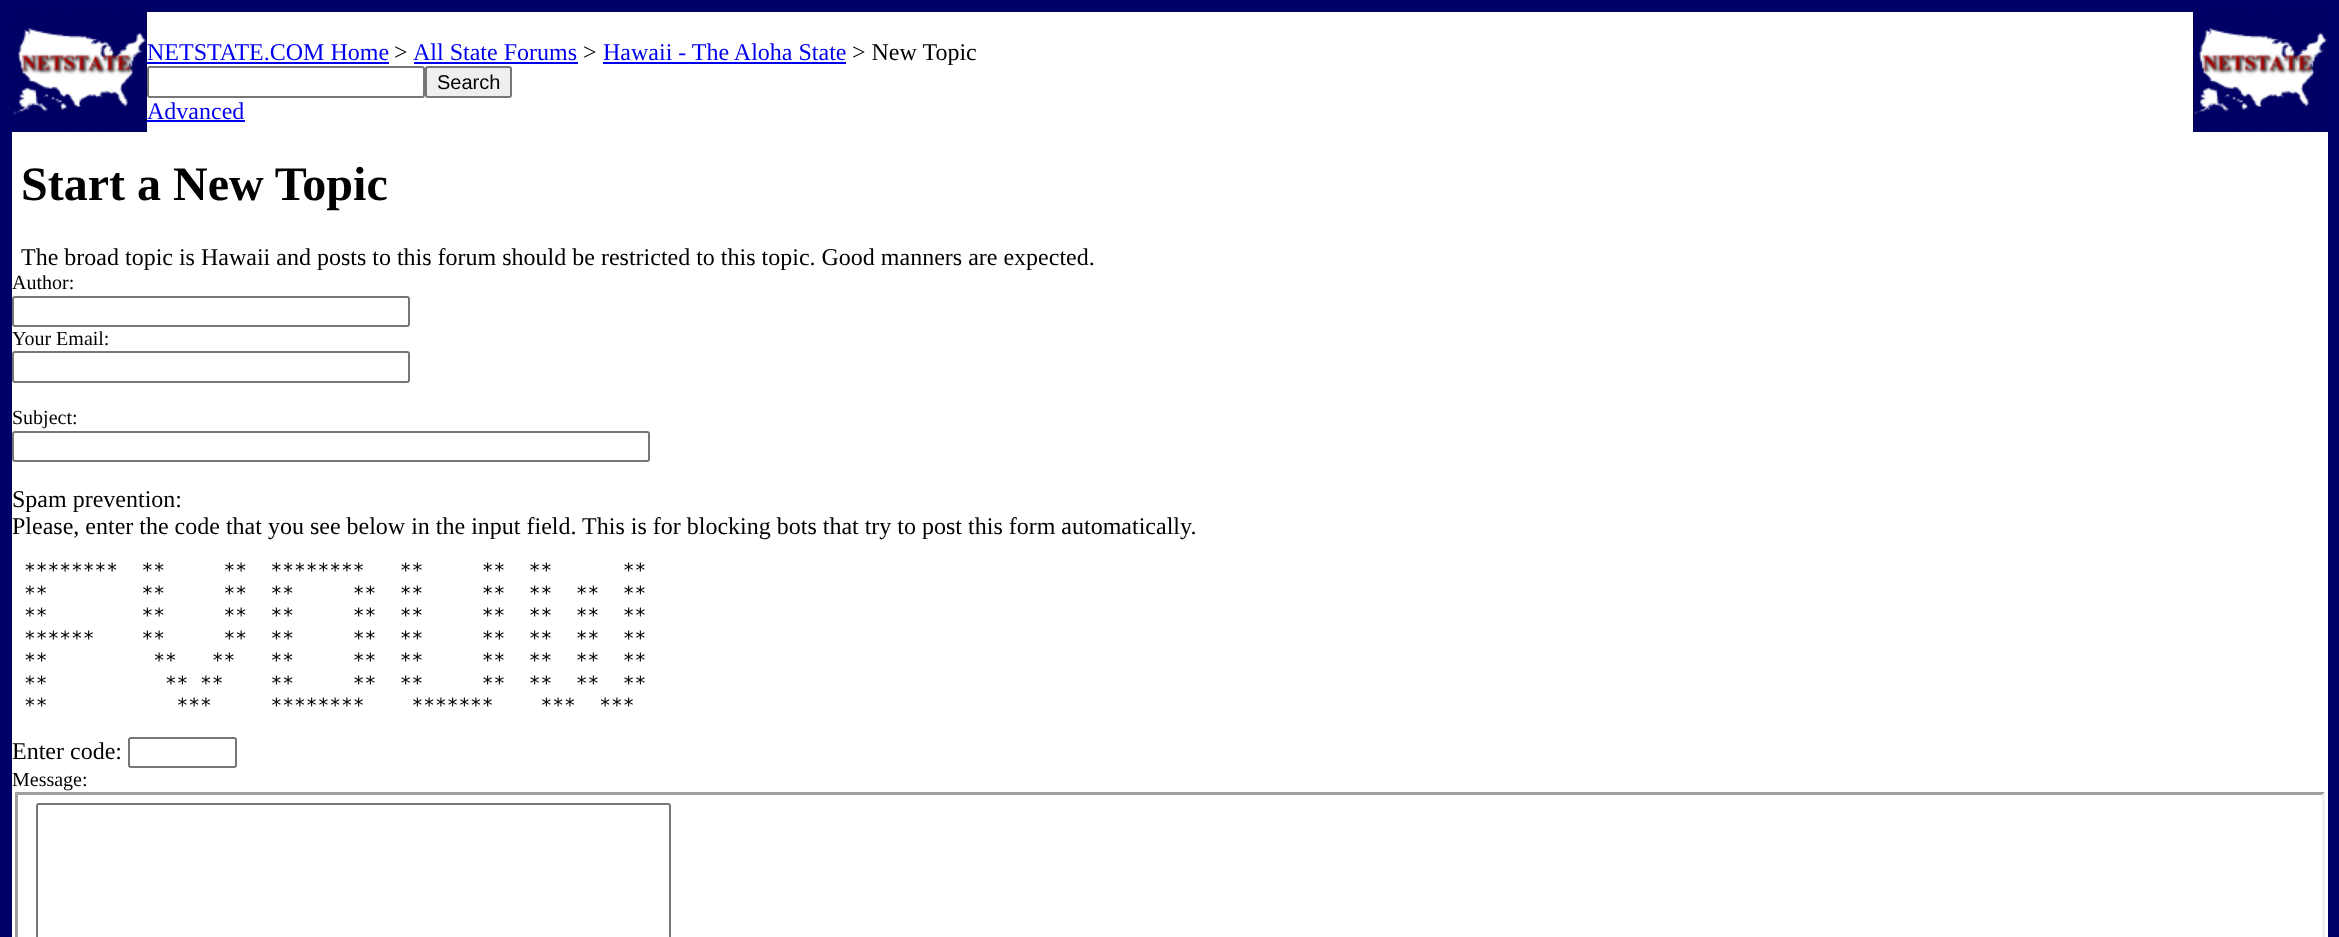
<svg xmlns="http://www.w3.org/2000/svg" width="2339" height="937">
	<rect width="100%" height="100%" fill="#000066" />
	<rect x="12" y="12" width="2316" height="925" fill="#FFFFFF" />
	<image x="12" y="12" width="135" height="120" href="assets/img1.png" />
	<image x="2193" y="12" width="135" height="120" href="assets/img2.png" />
	<text x="147" y="60" font-family="Liberation Serif" font-size="24" fill="#0000EE">NETSTATE.COM Home</text>
	<rect x="147" y="62" width="242" height="2" fill="#0000EE" />
	<text x="394" y="60" font-family="Liberation Serif" font-size="24" fill="#000000">&gt;</text>
	<text x="413" y="60" font-family="Liberation Serif" font-size="24" fill="#0000EE">All State Forums</text>
	<rect x="414" y="62" width="164" height="2" fill="#0000EE" />
	<text x="583" y="60" font-family="Liberation Serif" font-size="24" fill="#000000">&gt;</text>
	<text x="603" y="60" font-family="Liberation Serif" font-size="24" fill="#0000EE">Hawaii - The Aloha State</text>
	<rect x="603" y="62" width="243" height="2" fill="#0000EE" />
	<text x="852" y="60" font-family="Liberation Serif" font-size="24" fill="#000000">&gt; New Topic</text>
	<rect x="148" y="67" width="276" height="30" rx="2" fill="none" stroke="#767676" stroke-width="2" />
	<rect x="426" y="67" width="85" height="30" rx="2" fill="#EFEFEF" stroke="#767676" stroke-width="2" />
	<text x="437" y="89" font-family="Liberation Sans" font-size="20" fill="#000000">Search</text>
	<text x="147" y="119" font-family="Liberation Serif" font-size="24" fill="#0000EE">Advanced</text>
	<rect x="147" y="120" width="98" height="2" fill="#0000EE" />
	<text x="21" y="200" font-family="Liberation Serif" font-size="48" font-weight="700" fill="#000000">Start a New Topic</text>
	<text x="21" y="265" font-family="Liberation Serif" font-size="24" fill="#000000">The broad topic is Hawaii and posts to this forum should be restricted to this topic. Good manners are expected.</text>
	<text x="12" y="289" font-family="Liberation Serif" font-size="20" fill="#000000">Author:</text>
	<rect x="13" y="297" width="396" height="29" rx="2" fill="none" stroke="#767676" stroke-width="2" />
	<text x="12" y="345" font-family="Liberation Serif" font-size="20" fill="#000000">Your Email:</text>
	<rect x="13" y="352" width="396" height="30" rx="2" fill="none" stroke="#767676" stroke-width="2" />
	<text x="12" y="424" font-family="Liberation Serif" font-size="20" fill="#000000">Subject:</text>
	<rect x="13" y="432" width="636" height="29" rx="2" fill="none" stroke="#767676" stroke-width="2" />
	<g font-family="Liberation Serif" font-size="24" fill="#000000">
		<text x="12" y="507">Spam prevention:</text>
		<text x="12" y="534">Please, enter the code that you see below in the input field. This is for blocking bots that try to post this form automatically.</text>
	</g>
	<g font-family="DejaVu Sans Mono" font-size="19.5" fill="#000000">
		<text x="24" y="577" xml:space="preserve">********  **     **  ********   **     **  **      **</text>
		<text x="24" y="600" xml:space="preserve">**        **     **  **     **  **     **  **  **  **</text>
		<text x="24" y="622" xml:space="preserve">**        **     **  **     **  **     **  **  **  **</text>
		<text x="24" y="645" xml:space="preserve">******    **     **  **     **  **     **  **  **  **</text>
		<text x="24" y="667" xml:space="preserve">**         **   **   **     **  **     **  **  **  **</text>
		<text x="24" y="690" xml:space="preserve">**          ** **    **     **  **     **  **  **  **</text>
		<text x="24" y="712" xml:space="preserve">**           ***     ********    *******    ***  ***</text>
	</g>
	<text x="12" y="759" font-family="Liberation Serif" font-size="24" fill="#000000">Enter code:</text>
	<rect x="129" y="738" width="107" height="29" rx="2" fill="none" stroke="#767676" stroke-width="2" />
	<text x="12" y="786" font-family="Liberation Serif" font-size="20" fill="#000000">Message:</text>
	<path d="M15 792H2325L2322 795H18Z" fill="#9F9F9F" />
	<path d="M2325 792V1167L2322 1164V795Z" fill="#EFEFEF" />
	<path d="M15 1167V792L18 795V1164Z" fill="#9F9F9F" />
	<rect x="37" y="804" width="633" height="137" rx="2" fill="none" stroke="#767676" stroke-width="2" />
</svg>
